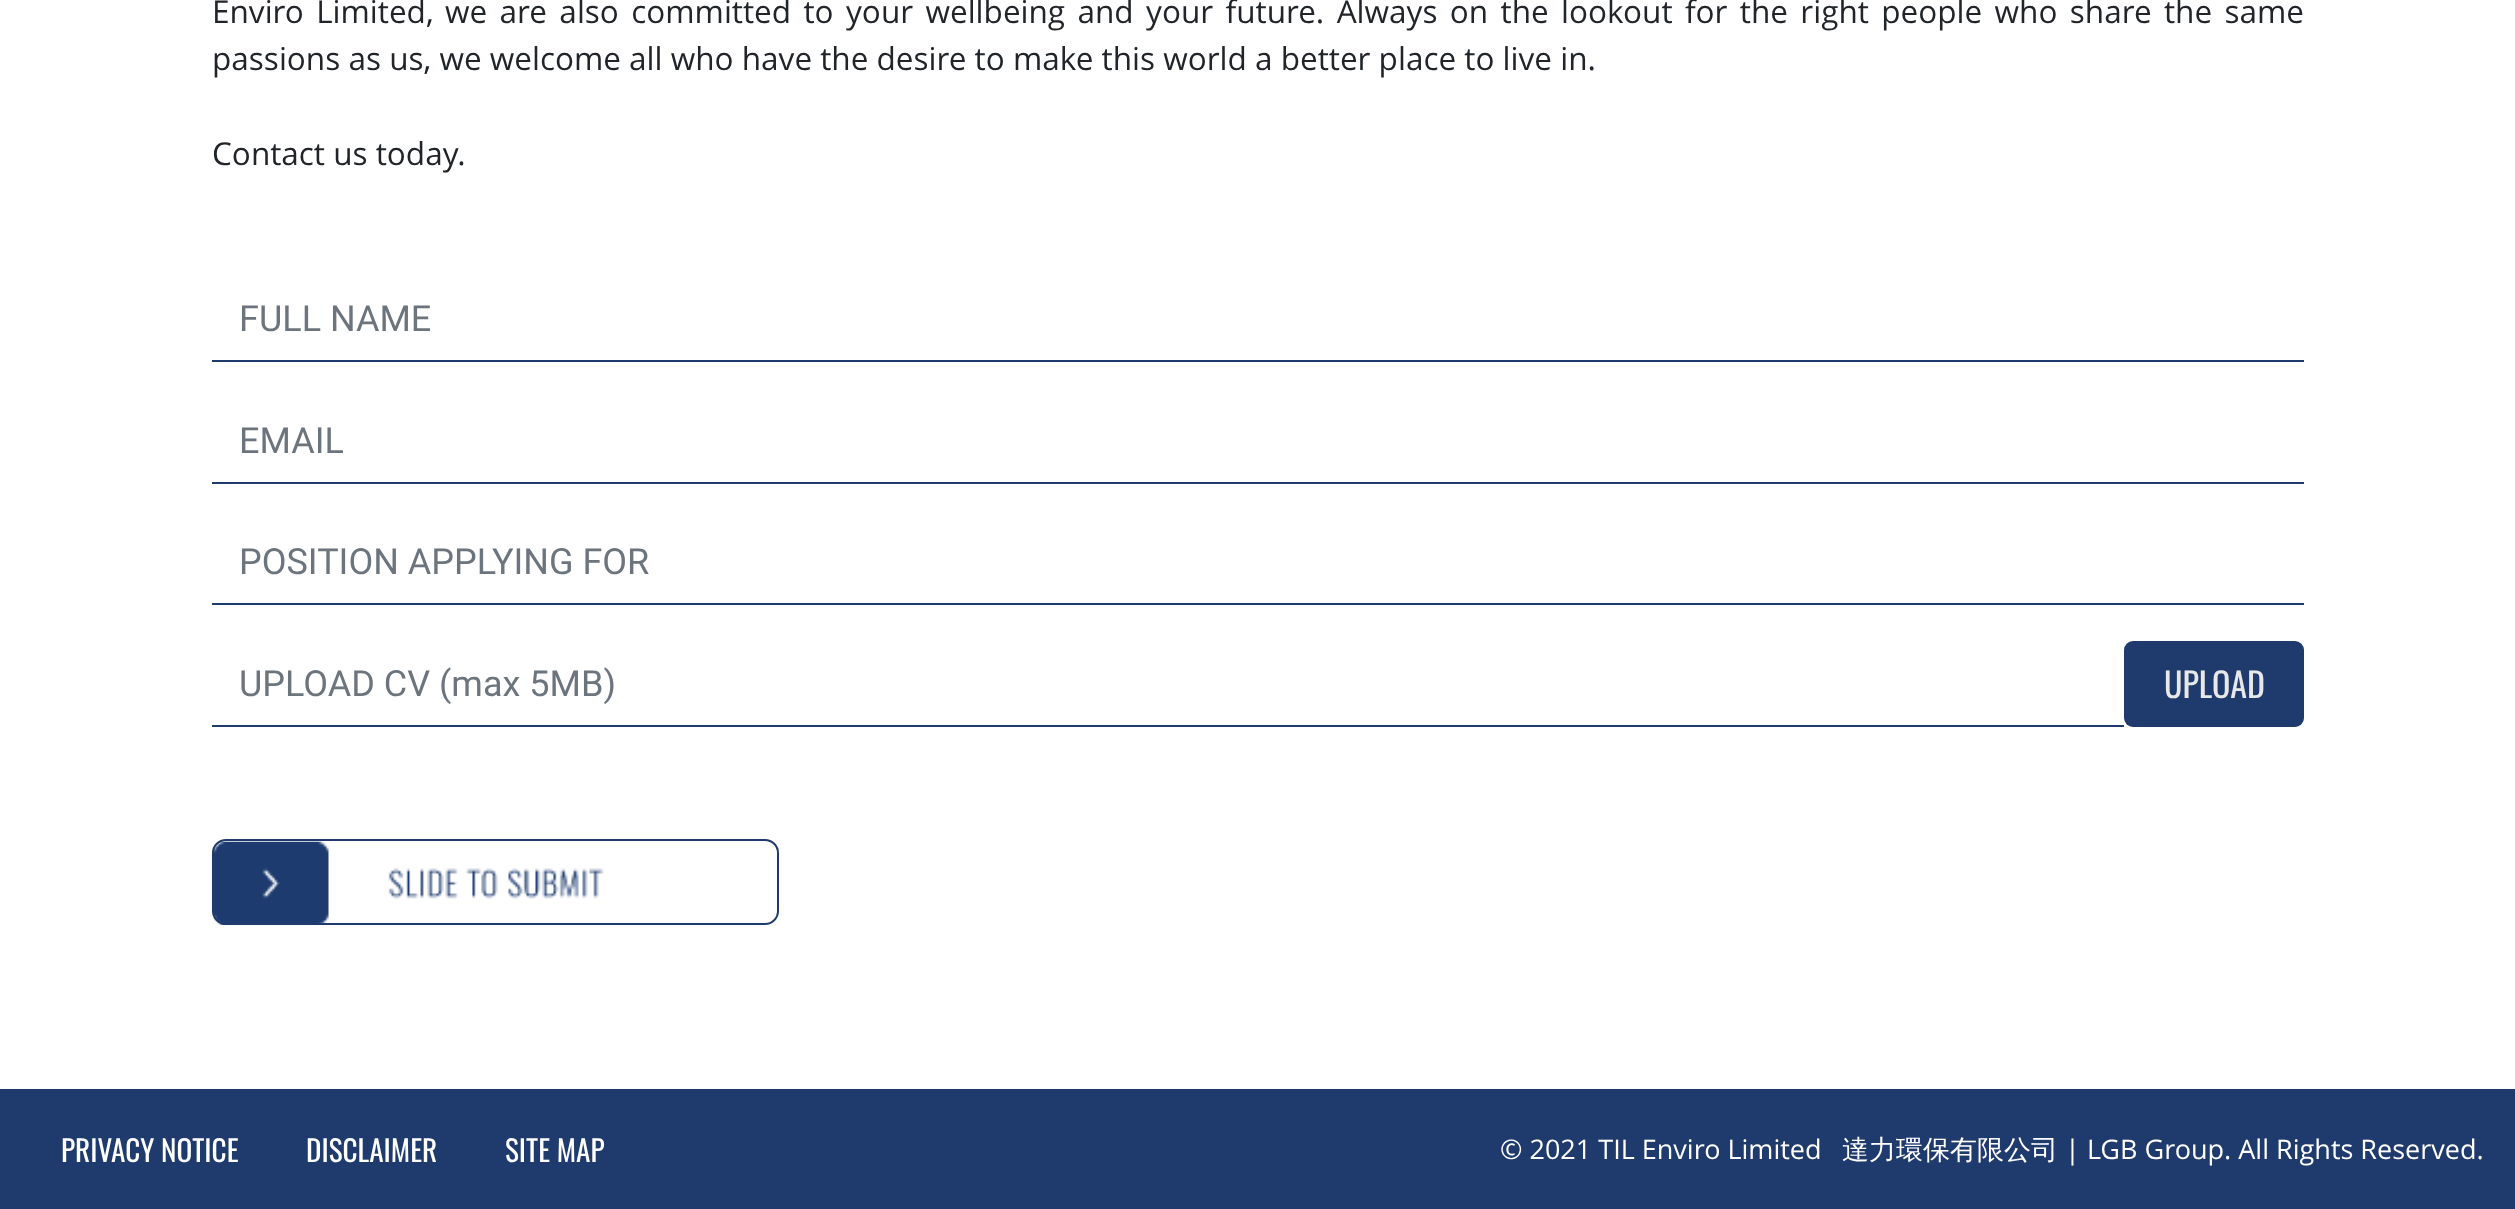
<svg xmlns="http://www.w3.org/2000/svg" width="2515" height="1209">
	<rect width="100%" height="100%" fill="#FFFFFF" />
	<g font-family="Open Sans" font-size="31.5" fill="#212529">
		<text x="212" y="23" word-spacing="4.2">Enviro Limited,</text>
		<text x="445" y="23" word-spacing="4.2">we are also committed to your wellbeing and your future. Always on the lookout for the right people who share the same</text>
		<text x="212" y="70">passions as us, we welcome all who have the desire to make this world a better place to live in.</text>
		<text x="212" y="165">Contact us today.</text>
	</g>
	<rect x="212" y="360" width="2092" height="2" fill="#1F3B6D" />
	<text x="239" y="331" font-family="Roboto" font-size="36" fill="#6C757D">FULL NAME</text>
	<rect x="212" y="482" width="2092" height="2" fill="#1F3B6D" />
	<text x="239" y="453" font-family="Roboto" font-size="36" fill="#6C757D">EMAIL</text>
	<rect x="212" y="603" width="2092" height="2" fill="#1F3B6D" />
	<text x="239" y="574" font-family="Roboto" font-size="36" fill="#6C757D">POSITION APPLYING FOR</text>
	<rect x="212" y="725" width="1912" height="2" fill="#1F3B6D" />
	<text x="239" y="696" font-family="Roboto" font-size="36" fill="#6C757D">UPLOAD CV (max 5MB)</text>
	<rect x="2124" y="641" width="180" height="86" rx="9" fill="#1F3B6D" />
	<text x="2164" y="698" font-family="Oswald" font-size="34" fill="#E8E8E8">UPLOAD</text>
	<image x="388" y="868" width="216" height="31" href="assets/img1.png" />
	<rect x="213" y="840" width="565" height="84" rx="13" fill="none" stroke="#1F3B6D" stroke-width="2" />
	<image x="213" y="841" width="116" height="84" href="assets/img2.png" />
	<rect x="0" y="1089" width="2515" height="120" fill="#1F3B6D" />
	<g font-family="Oswald" font-size="29.25" fill="#FFFFFF">
		<text x="61" y="1162">PRIVACY NOTICE</text>
		<text x="306" y="1162">DISCLAIMER</text>
		<text x="505" y="1162">SITE MAP</text>
	</g>
	<text x="1500" y="1159" font-family="Open Sans" font-size="27" fill="#FFFFFF">© 2021 TIL Enviro Limited</text>
	<text x="1842" y="1159" font-family="WenQuanYi Zen Hei" font-size="27" font-weight="500" fill="#FFFFFF">達力環保有限公司</text>
	<text x="2065" y="1159" font-family="Open Sans" font-size="27" fill="#FFFFFF">| LGB Group. All Rights Reserved.</text>
</svg>
